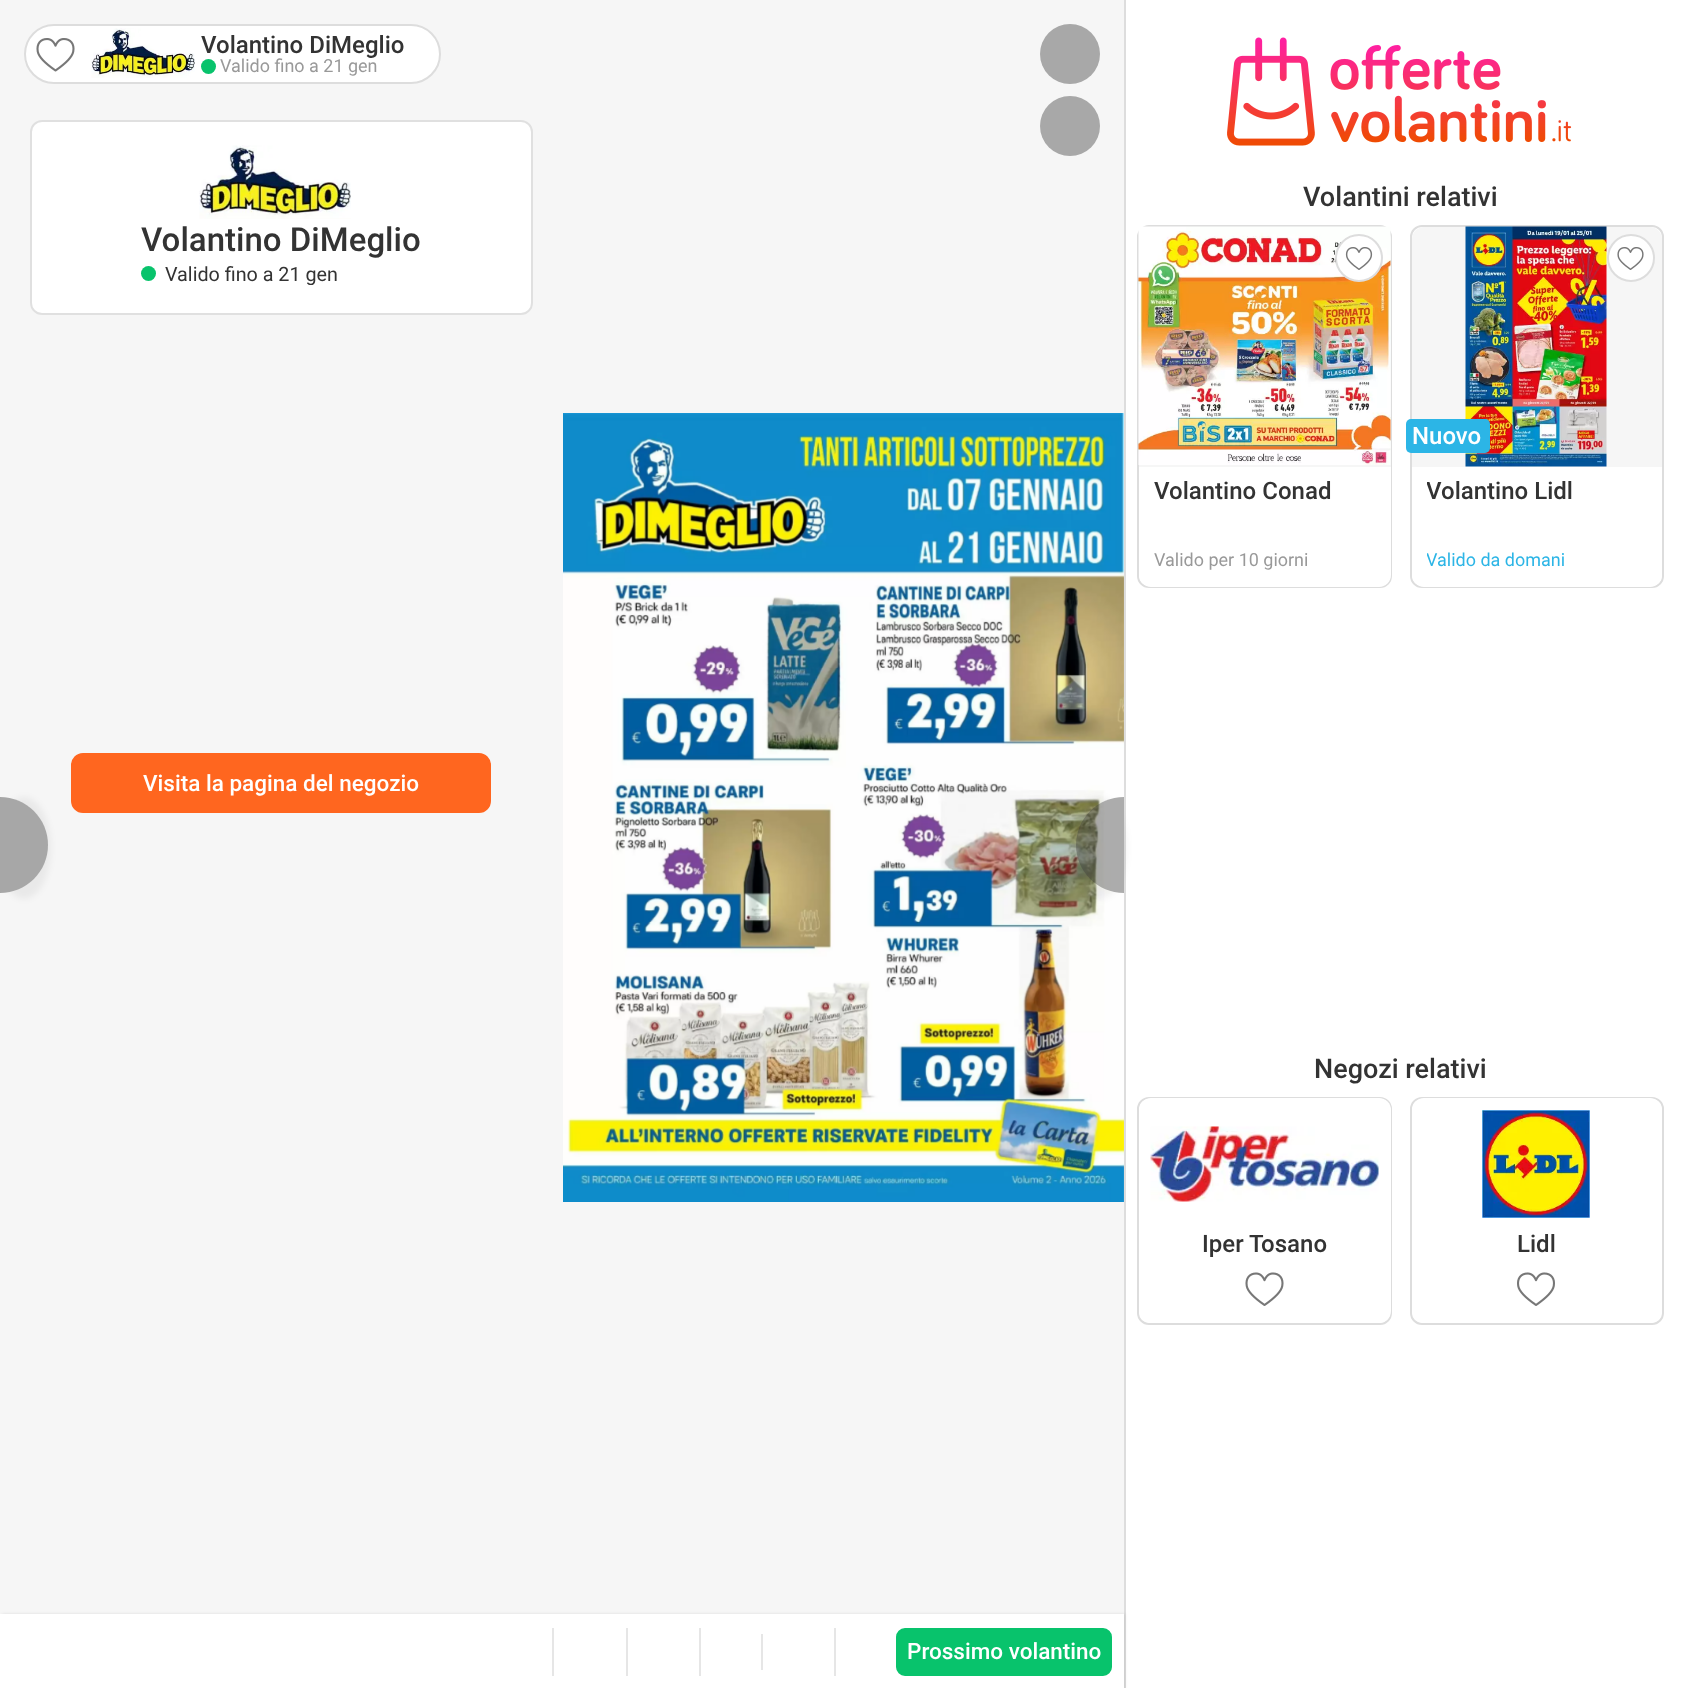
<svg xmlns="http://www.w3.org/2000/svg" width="1697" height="1688">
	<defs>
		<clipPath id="clip1"><path d="M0 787H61V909H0ZM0 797C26.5 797 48 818.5 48 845C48 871.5 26.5 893 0 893Z" clip-rule="evenodd" /></clipPath>
		<clipPath id="clip2"><path d="M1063 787H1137V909H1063ZM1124 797V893C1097.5 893 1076 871.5 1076 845C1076 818.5 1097.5 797 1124 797Z" clip-rule="evenodd" /></clipPath>
		<clipPath id="clip3"><rect x="1427" y="477" width="220" height="29" /></clipPath>
		<clipPath id="clip4"><rect x="1427" y="548" width="138" height="27" /></clipPath>
	</defs>
	<rect width="100%" height="100%" fill="#FFFFFF" />
	<rect x="0" y="0" width="1124" height="1614" fill="#F6F6F6" />
	<rect x="25" y="25" width="415" height="58" rx="29" fill="#FFFFFF" stroke="#DDDDDD" stroke-width="2" />
	<image x="36" y="38" width="39" height="34" href="assets/img1.png" />
	<image x="91" y="28" width="104" height="50" href="assets/img2.png" />
	<text x="201" y="53" font-family="Roboto" font-size="24" font-weight="500" fill="#333333">Volantino DiMeglio</text>
	<circle cx="208.5" cy="66.5" r="7.5" fill="#08C36C" />
	<text x="220" y="72" font-family="Roboto" font-size="18" fill="#999999">Valido fino a 21 gen</text>
	<circle cx="1070" cy="54" r="30" fill="#A8A8A8" />
	<circle cx="1070" cy="126" r="30" fill="#A8A8A8" />
	<rect x="30" y="120" width="503" height="195" rx="12" fill="#FFFFFF" />
	<rect x="31" y="121" width="501" height="193" rx="11" fill="none" stroke="#000000" stroke-opacity="0.12" stroke-width="2" />
	<image x="199" y="145" width="152" height="74" href="assets/img3.png" />
	<text x="141" y="251" font-family="Roboto" font-size="33" font-weight="500" fill="#333333">Volantino DiMeglio</text>
	<circle cx="148.5" cy="273.5" r="7.5" fill="#08C36C" />
	<text x="165" y="281" font-family="Roboto" font-size="19.75" fill="#333333">Valido fino a 21 gen</text>
	<rect x="72" y="754" width="418" height="58" rx="11" fill="#FF661F" stroke="#FF661F" stroke-width="2" />
	<text x="143" y="791" font-family="Roboto" font-size="22.5" font-weight="500" fill="#FFFFFF">Visita la pagina del negozio</text>
	<image x="563" y="413" width="561" height="789" href="assets/img4.png" />
	<image x="563" y="413" width="561" height="789" href="assets/img5.png" />
	<g clip-path="url(#clip1)">
		<rect x="-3" y="797" width="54" height="102" rx="51" fill="#000000" fill-opacity="0.05" filter="blur(3px)" />
	</g>
	<path d="M0 797C26.5 797 48 818.5 48 845C48 871.5 26.5 893 0 893Z" fill="#333333" fill-opacity="0.4" />
	<rect x="1124" y="0" width="2" height="1688" fill="#DDDDDD" />
	<g clip-path="url(#clip2)">
		<rect x="1073" y="797" width="54" height="102" rx="51" fill="#000000" fill-opacity="0.05" filter="blur(3px)" />
	</g>
	<path d="M1124 797V893C1097.5 893 1076 871.5 1076 845C1076 818.5 1097.5 797 1124 797Z" fill="#333333" fill-opacity="0.4" />
	<rect x="2" y="1614" width="1123" height="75" fill="#000000" fill-opacity="0.1" filter="blur(1.5px)" />
	<rect x="0" y="1614" width="1124" height="74" fill="#FFFFFF" />
	<rect x="552" y="1628" width="2" height="48" fill="#E6E6E6" />
	<rect x="626" y="1628" width="2" height="48" fill="#E6E6E6" />
	<rect x="699" y="1628" width="2" height="48" fill="#E6E6E6" />
	<rect x="761" y="1634" width="2" height="36" fill="#E6E6E6" />
	<rect x="834" y="1628" width="2" height="48" fill="#E6E6E6" />
	<rect x="897" y="1629" width="214" height="46" rx="8" fill="#08C36C" stroke="#08C36C" stroke-width="2" />
	<text x="907" y="1659" font-family="Roboto" font-size="22.5" font-weight="500" fill="#FFFFFF">Prossimo volantino</text>
	<image x="1227" y="37" width="345" height="109" href="assets/img6.png" />
	<text x="1303" y="206" font-family="Roboto" font-size="27" font-weight="500" fill="#333333">Volantini relativi</text>
	<rect x="1138" y="226" width="253" height="361" rx="11" fill="none" stroke="#DDDDDD" stroke-width="2" />
	<path d="M1151 227H1379C1385.5 227 1391 232.5 1391 239V467H1139V239C1139 232.5 1144.5 227 1151 227Z" fill="#F6F6F6" />
	<image x="1138" y="226" width="253" height="239" href="assets/img7.png" />
	<circle cx="1359" cy="258" r="23" fill="#FFFFFF" stroke="#DDDDDD" stroke-width="2" />
	<image x="1345" y="247" width="28" height="23" href="assets/img8.png" />
	<path d="M1139 467H1391V575C1391 581.5 1385.5 587 1379 587H1151C1144.5 587 1139 581.5 1139 575Z" fill="#FFFFFF" />
	<text x="1154" y="499" font-family="Roboto" font-size="24" font-weight="500" fill="#333333">Volantino Conad</text>
	<text x="1154" y="566" font-family="Roboto" font-size="18" fill="#999999">Valido per 10 giorni</text>
	<rect x="1411" y="226" width="252" height="361" rx="11" fill="none" stroke="#DDDDDD" stroke-width="2" />
	<path d="M1424 227H1650C1656.5 227 1662 232.5 1662 239V467H1412V239C1412 232.5 1417.5 227 1424 227Z" fill="#F6F6F6" />
	<circle cx="1631" cy="258" r="23" fill="#FFFFFF" stroke="#DDDDDD" stroke-width="2" />
	<image x="1617" y="247" width="27" height="23" href="assets/img9.png" />
	<image x="1465" y="226" width="142" height="241" href="assets/img10.png" />
	<rect x="1406" y="419" width="84" height="34" rx="5" fill="#2CB5E6" />
	<text x="1412" y="444" font-family="Roboto" font-size="24" font-weight="500" fill="#FFFFFF">Nuovo</text>
	<path d="M1412 467H1662V575C1662 581.5 1656.5 587 1650 587H1424C1417.5 587 1412 581.5 1412 575Z" fill="#FFFFFF" />
	<g clip-path="url(#clip3)">
		<text x="1426" y="499" font-family="Roboto" font-size="24" font-weight="500" fill="#333333">Volantino Lidl</text>
	</g>
	<g clip-path="url(#clip4)">
		<text x="1426" y="566" font-family="Roboto" font-size="18" fill="#2CB5E6">Valido da domani</text>
	</g>
	<text x="1314" y="1078" font-family="Roboto" font-size="27" font-weight="500" fill="#333333">Negozi relativi</text>
	<rect x="1138" y="1098" width="253" height="226" rx="11" fill="none" stroke="#DDDDDD" stroke-width="2" />
	<rect x="1139" y="1098" width="252" height="225" rx="12" fill="#FFFFFF" />
	<image x="1150" y="1126" width="229" height="76" href="assets/img11.png" />
	<text x="1202" y="1252" font-family="Roboto" font-size="24" font-weight="500" fill="#333333">Iper Tosano</text>
	<image x="1245" y="1272" width="39" height="34" href="assets/img12.png" />
	<rect x="1411" y="1098" width="252" height="226" rx="11" fill="none" stroke="#DDDDDD" stroke-width="2" />
	<rect x="1412" y="1098" width="250" height="225" rx="12" fill="#FFFFFF" />
	<image x="1482" y="1110" width="108" height="108" href="assets/img13.png" />
	<text x="1517" y="1252" font-family="Roboto" font-size="24" font-weight="500" fill="#333333">Lidl</text>
	<image x="1517" y="1272" width="38" height="34" href="assets/img14.png" />
</svg>
